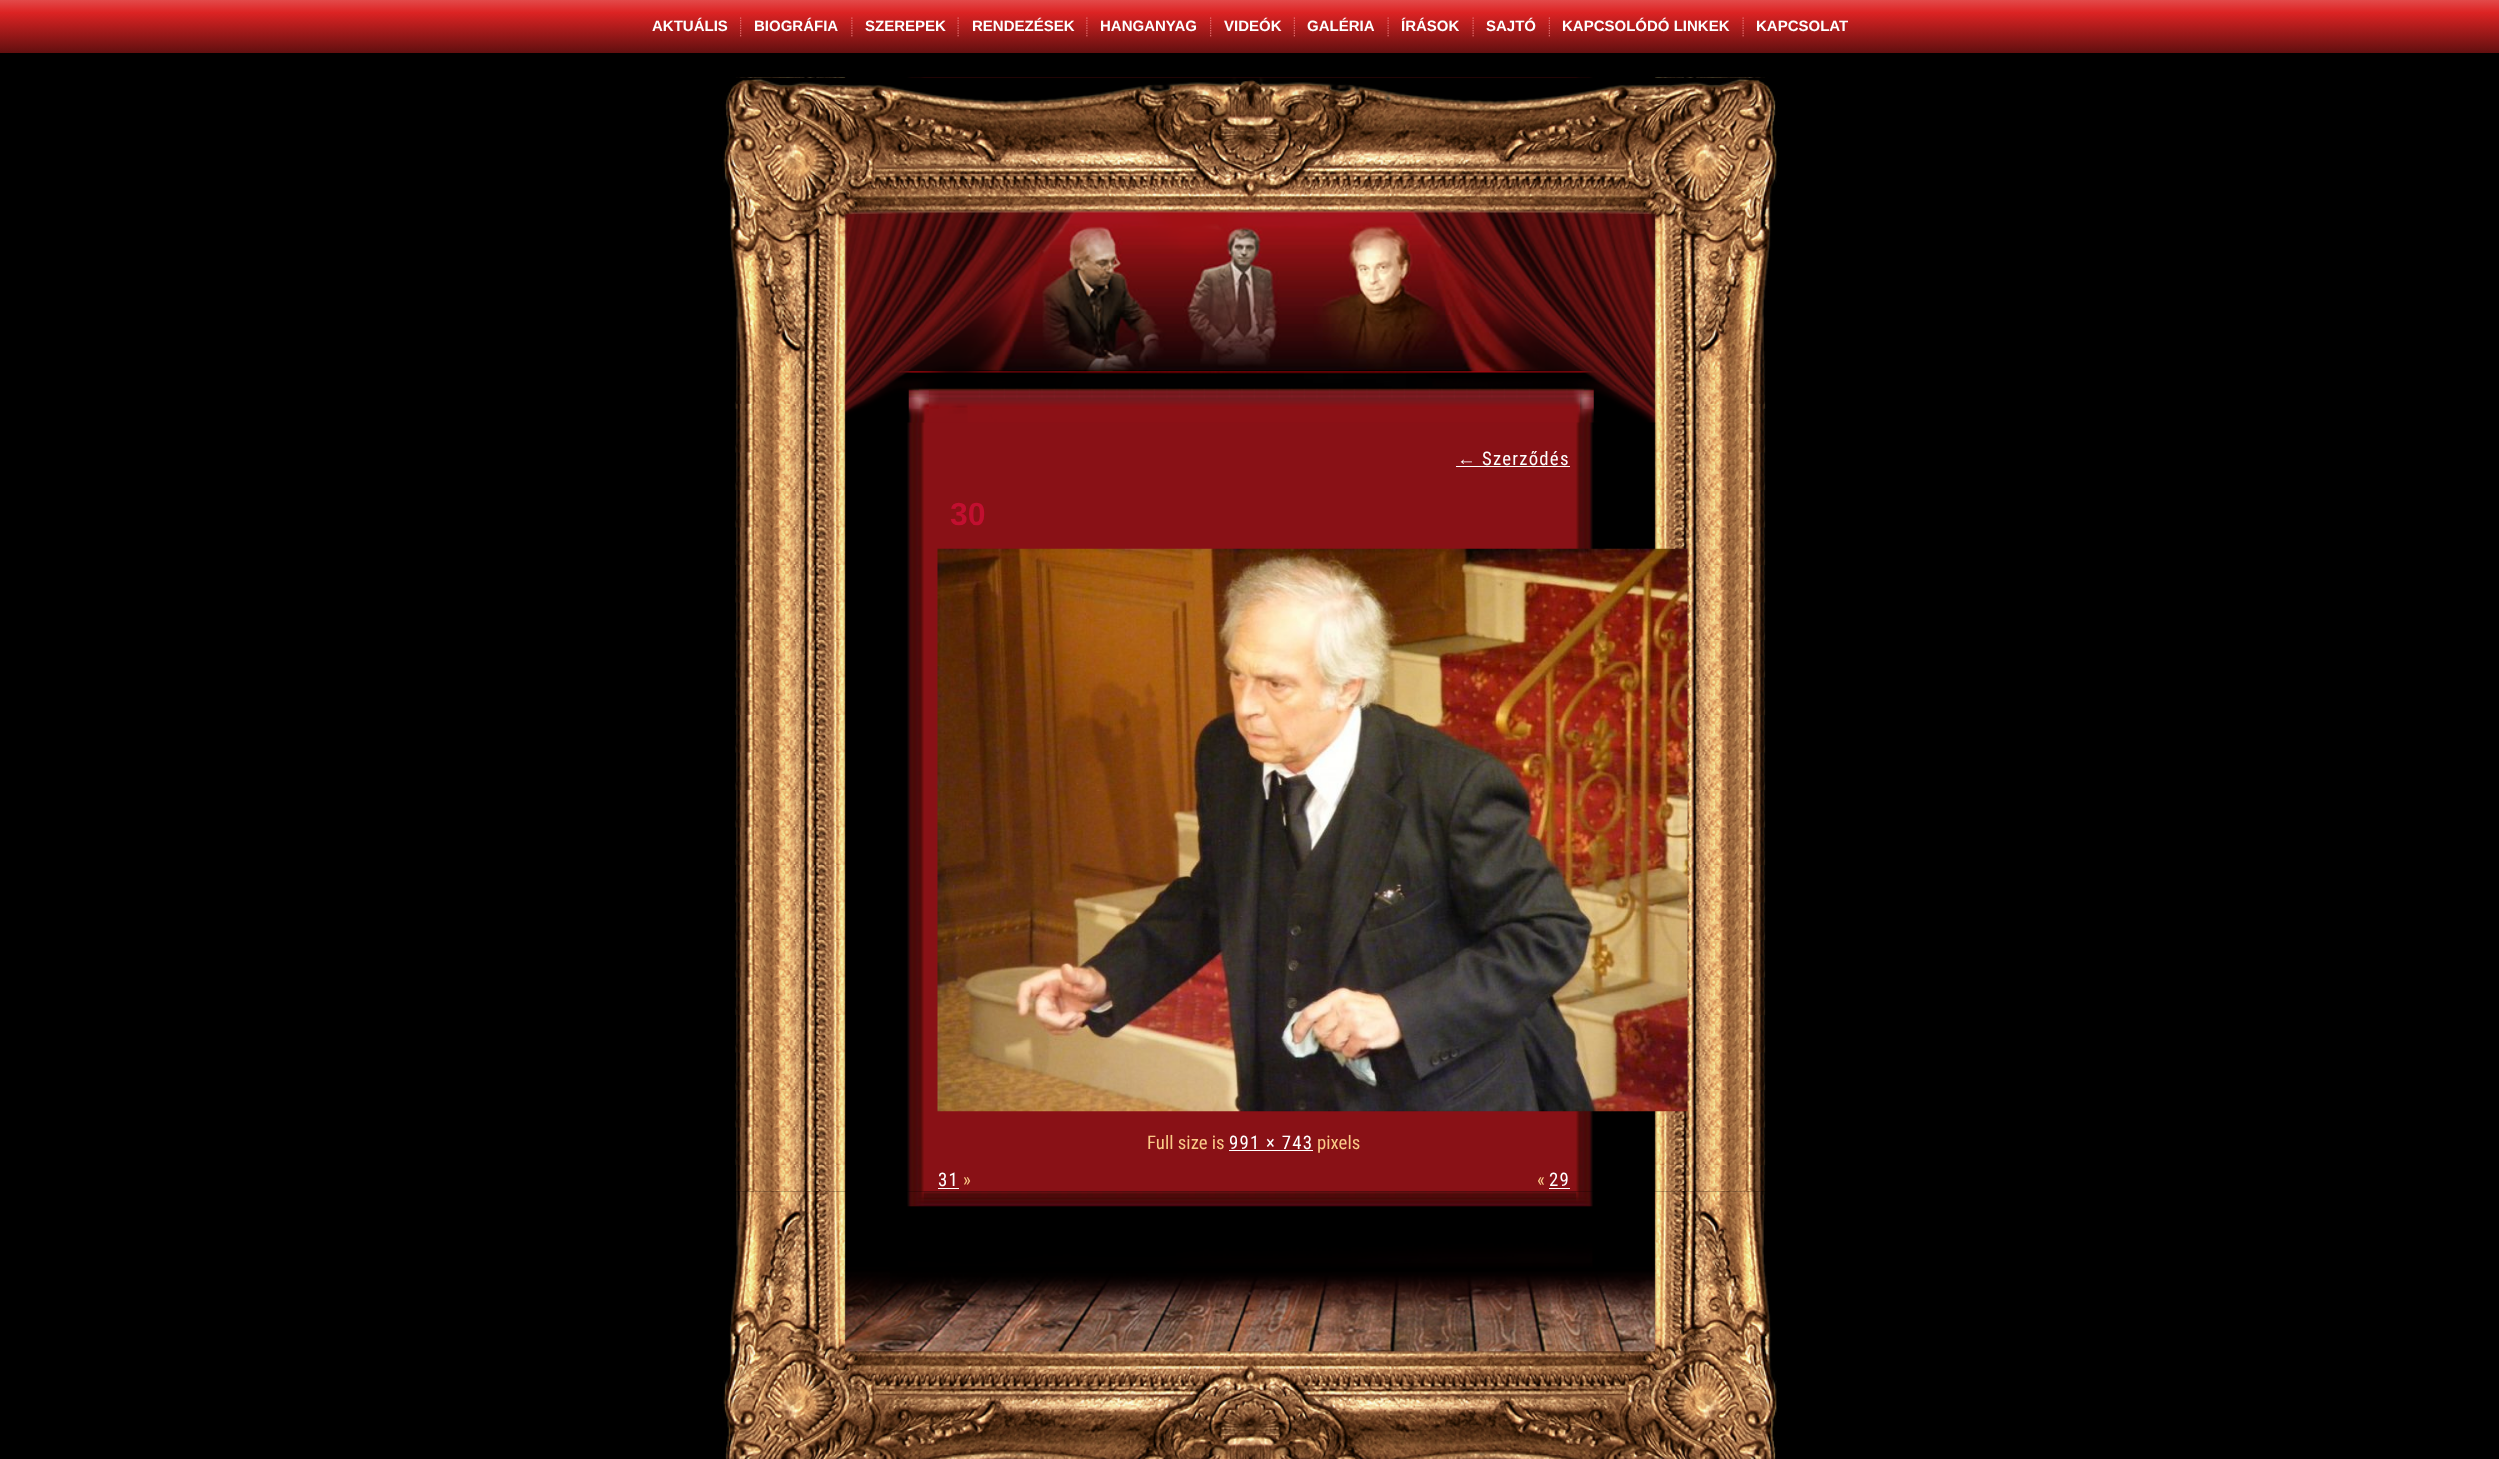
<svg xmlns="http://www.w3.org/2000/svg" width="2499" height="1459">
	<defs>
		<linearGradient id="g1" gradientUnits="userSpaceOnUse" x1="1250" y1="0" x2="1250" y2="53"><stop offset="0" stop-color="#E34A4A" /><stop offset="0.24" stop-color="#DC2323" /><stop offset="1" stop-color="#610F0F" /></linearGradient>
	</defs>
	<rect width="100%" height="100%" fill="#000000" />
	<rect x="0" y="0" width="2499" height="53" fill="url(#g1)" />
	<text x="652" y="31" font-family="Liberation Sans" font-size="15" font-weight="700" fill="#FFFFFF">AKTUÁLIS</text>
	<image x="740" y="17" width="2" height="20" href="assets/img1.png" />
	<text x="754" y="31" font-family="Liberation Sans" font-size="15" font-weight="700" fill="#FFFFFF">BIOGRÁFIA</text>
	<image x="851" y="17" width="2" height="20" href="assets/img2.png" />
	<text x="865" y="31" font-family="Liberation Sans" font-size="15" font-weight="700" fill="#FFFFFF">SZEREPEK</text>
	<image x="957" y="17" width="2" height="20" href="assets/img3.png" />
	<text x="972" y="31" font-family="Liberation Sans" font-size="15" font-weight="700" fill="#FFFFFF">RENDEZÉSEK</text>
	<image x="1086" y="17" width="2" height="20" href="assets/img2.png" />
	<text x="1100" y="31" font-family="Liberation Sans" font-size="15" font-weight="700" fill="#FFFFFF">HANGANYAG</text>
	<image x="1210" y="17" width="2" height="20" href="assets/img1.png" />
	<text x="1224" y="31" font-family="Liberation Sans" font-size="15" font-weight="700" fill="#FFFFFF">VIDEÓK</text>
	<image x="1293" y="17" width="2" height="20" href="assets/img4.png" />
	<text x="1307" y="31" font-family="Liberation Sans" font-size="15" font-weight="700" fill="#FFFFFF">GALÉRIA</text>
	<image x="1387" y="17" width="2" height="20" href="assets/img3.png" />
	<text x="1401" y="31" font-family="Liberation Sans" font-size="15" font-weight="700" fill="#FFFFFF">ÍRÁSOK</text>
	<image x="1472" y="17" width="2" height="20" href="assets/img3.png" />
	<text x="1486" y="31" font-family="Liberation Sans" font-size="15" font-weight="700" fill="#FFFFFF">SAJTÓ</text>
	<image x="1548" y="17" width="2" height="20" href="assets/img4.png" />
	<text x="1562" y="31" font-family="Liberation Sans" font-size="15" font-weight="700" fill="#FFFFFF">KAPCSOLÓDÓ LINKEK</text>
	<image x="1742" y="17" width="2" height="20" href="assets/img3.png" />
	<text x="1756" y="31" font-family="Liberation Sans" font-size="15" font-weight="700" fill="#FFFFFF">KAPCSOLAT</text>
	<image x="735" y="77" width="1031" height="1114" href="assets/img5.png" />
	<image x="723" y="77" width="1054" height="346" href="assets/img6.png" />
	<text x="1457" y="465" font-family="Liberation Sans" font-size="18.75" letter-spacing="1.25" fill="#FFFFFF">←</text>
	<rect x="1456" y="466" width="114" height="1" fill="#FFFFFF" />
	<text x="1482" y="465" font-family="Roboto Condensed" font-size="18.75" letter-spacing="1.25" fill="#FFFFFF">Szerződés</text>
	<text x="950" y="525" font-family="Liberation Sans" font-size="32" font-weight="700" fill="#C20F30">30</text>
	<image x="937" y="548" width="751" height="564" href="assets/img7.png" />
	<text x="1147" y="1149" font-family="Roboto Condensed" font-size="18.75" fill="#FBCA87">Full size is</text>
	<text x="1229" y="1149" font-family="Roboto Condensed" font-size="18.75" letter-spacing="1.25" fill="#FFFFFF">991 × 743</text>
	<rect x="1229" y="1150" width="84" height="1" fill="#FFFFFF" />
	<text x="1317" y="1149" font-family="Roboto Condensed" font-size="18.75" fill="#FBCA87">pixels</text>
	<text x="938" y="1186" font-family="Roboto Condensed" font-size="18.75" letter-spacing="1.25" fill="#FFFFFF">31</text>
	<rect x="938" y="1188" width="21" height="1" fill="#FFFFFF" />
	<g font-family="Roboto Condensed" font-size="18.75" fill="#FBCA87">
		<text x="963" y="1186">»</text>
		<text x="1537" y="1186">«</text>
	</g>
	<text x="1549" y="1186" font-family="Roboto Condensed" font-size="18.75" letter-spacing="1.25" fill="#FFFFFF">29</text>
	<rect x="1549" y="1188" width="21" height="1" fill="#FFFFFF" />
	<image x="723" y="1191" width="1054" height="268" href="assets/img8.png" />
</svg>
